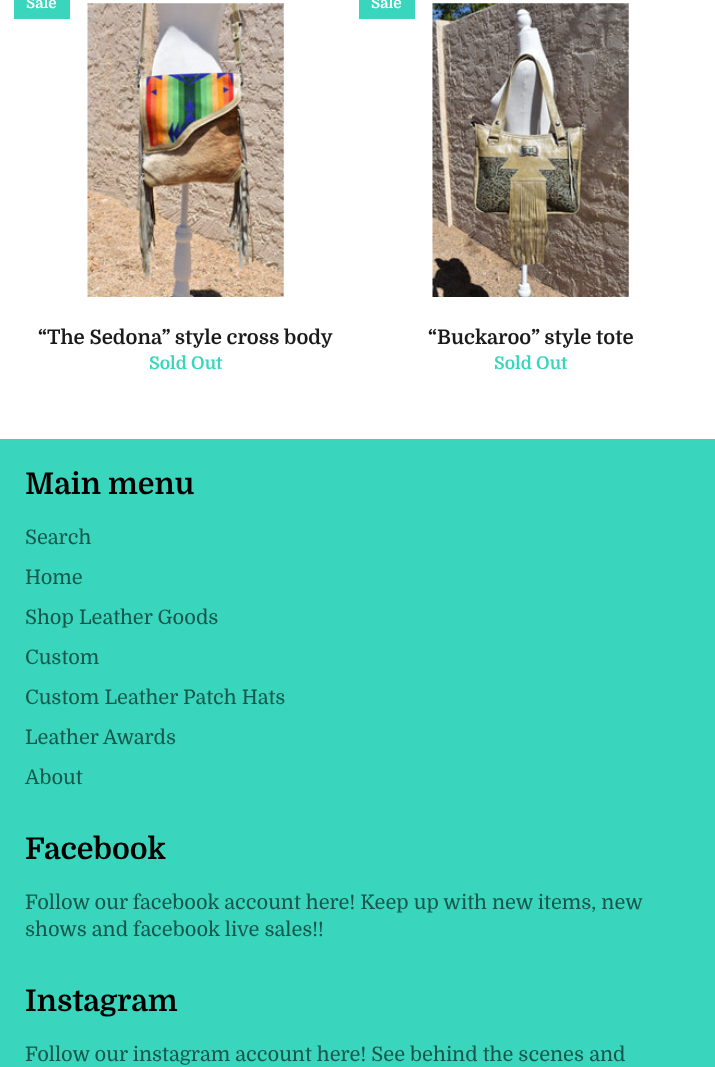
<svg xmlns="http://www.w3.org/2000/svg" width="715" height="1067">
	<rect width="100%" height="100%" fill="#FFFFFF" />
	<rect x="14" y="0" width="56" height="19" fill="#39D6BD" />
	<text x="26" y="8" font-family="Domine" font-size="15" font-weight="700" fill="#FFFFFF">Sale</text>
	<image x="87" y="3" width="197" height="294" href="assets/img1.png" />
	<text x="38" y="344" font-family="Domine" font-size="20" font-weight="700" fill="#1A1A1A">“The Sedona” style cross body</text>
	<text x="149" y="369" font-family="Domine" font-size="17.5" font-weight="700" fill="#39D6BD">Sold Out</text>
	<rect x="359" y="0" width="56" height="19" fill="#39D6BD" />
	<text x="371" y="8" font-family="Domine" font-size="15" font-weight="700" fill="#FFFFFF">Sale</text>
	<image x="432" y="3" width="197" height="294" href="assets/img2.png" />
	<text x="428" y="344" font-family="Domine" font-size="20" font-weight="700" fill="#1A1A1A">“Buckaroo” style tote</text>
	<text x="494" y="369" font-family="Domine" font-size="17.5" font-weight="700" fill="#39D6BD">Sold Out</text>
	<rect x="0" y="439" width="715" height="628" fill="#39D6BD" />
	<text x="25" y="494" font-family="Domine" font-size="30" font-weight="700" fill="#000000">Main menu</text>
	<g font-family="Domine" font-size="20" fill="#17564C">
		<text x="25" y="544">Search</text>
		<text x="25" y="584">Home</text>
		<text x="25" y="624">Shop Leather Goods</text>
		<text x="25" y="664">Custom</text>
		<text x="25" y="704">Custom Leather Patch Hats</text>
		<text x="25" y="744">Leather Awards</text>
		<text x="25" y="784">About</text>
	</g>
	<text x="25" y="859" font-family="Domine" font-size="30" font-weight="700" fill="#000000">Facebook</text>
	<g font-family="Domine" font-size="20" fill="#17564C">
		<text x="25" y="909">Follow our facebook account here! Keep up with new items, new</text>
		<text x="25" y="936">shows and facebook live sales!!</text>
	</g>
	<text x="25" y="1011" font-family="Domine" font-size="30" font-weight="700" fill="#000000">Instagram</text>
	<text x="25" y="1061" font-family="Domine" font-size="20" fill="#17564C">Follow our instagram account here! See behind the scenes and</text>
</svg>
